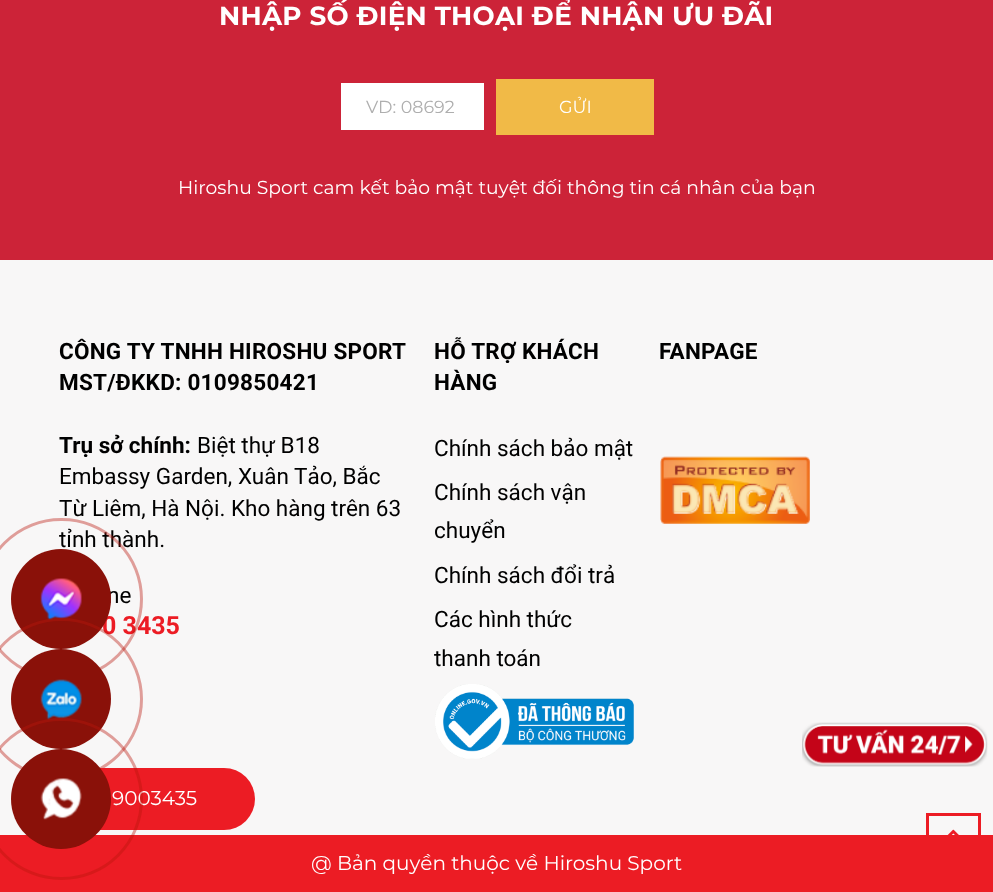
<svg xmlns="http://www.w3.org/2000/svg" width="993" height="892">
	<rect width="100%" height="100%" fill="#F8F7F7" />
	<rect x="0" y="0" width="993" height="260" fill="#CC2338" />
	<text x="219" y="25" font-family="Montserrat" font-size="26.25" font-weight="700" letter-spacing="0.25" fill="#FFFFFF">NHẬP SỐ ĐIỆN THOẠI ĐỂ NHẬN ƯU ĐÃI</text>
	<rect x="341" y="83" width="143" height="47" fill="#FFFFFF" />
	<text x="366" y="113" font-family="Montserrat" font-size="17.5" fill="#AEAEAE">VD: 08692</text>
	<rect x="496" y="79" width="158" height="56" fill="#F1BA47" />
	<text x="559" y="113" font-family="Montserrat" font-size="17.5" fill="#FFFFFF">GỬI</text>
	<text x="178" y="194" font-family="Montserrat" font-size="18.75" fill="#FFFFFF">Hiroshu Sport cam kết bảo mật tuyệt đối thông tin cá nhân của bạn</text>
	<g font-family="Roboto" font-size="22.5" font-weight="700" letter-spacing="0.25" fill="#000000">
		<text x="59" y="359">CÔNG TY TNHH HIROSHU SPORT</text>
		<text x="59" y="390">MST/ĐKKD: 0109850421</text>
	</g>
	<text x="59" y="453" font-family="Roboto" font-size="22.5" font-weight="700" fill="#000000">Trụ sở chính:</text>
	<g font-family="Roboto" font-size="22.5" fill="#000000">
		<text x="197" y="453">Biệt thự B18</text>
		<text x="59" y="484">Embassy Garden, Xuân Tảo, Bắc</text>
		<text x="59" y="516">Từ Liêm, Hà Nội. Kho hàng trên 63</text>
		<text x="59" y="547">tỉnh thành.</text>
		<text x="107" y="603">ne</text>
	</g>
	<text x="102" y="634" font-family="Roboto" font-size="25" font-weight="700" fill="#EC1C24">0 3435</text>
	<g font-family="Roboto" font-size="22.5" font-weight="700" letter-spacing="0.25" fill="#000000">
		<text x="434" y="359">HỖ TRỢ KHÁCH</text>
		<text x="434" y="390">HÀNG</text>
	</g>
	<g font-family="Roboto" font-size="22.5" fill="#000000">
		<text x="434" y="456">Chính sách bảo mật</text>
		<text x="434" y="500">Chính sách vận</text>
		<text x="434" y="538">chuyển</text>
		<text x="434" y="583">Chính sách đổi trả</text>
		<text x="434" y="627">Các hình thức</text>
		<text x="434" y="666">thanh toán</text>
	</g>
	<image x="435" y="684" width="199" height="75" href="assets/img1.png" />
	<text x="659" y="359" font-family="Roboto" font-size="22.5" font-weight="700" letter-spacing="0.25" fill="#000000">FANPAGE</text>
	<image x="660" y="456" width="150" height="68" href="assets/img2.png" />
	<rect x="-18.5" y="519.5" width="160" height="159" rx="79.5" fill="none" stroke="#BA160C" stroke-opacity="0.4" stroke-width="3" />
	<circle cx="61" cy="599" r="50" fill="#8A1109" />
	<image x="40" y="578" width="42" height="42" href="assets/img3.png" />
	<rect x="-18.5" y="619.5" width="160" height="159" rx="79.5" fill="none" stroke="#BA160C" stroke-opacity="0.4" stroke-width="3" />
	<circle cx="61" cy="699" r="50" fill="#8A1109" />
	<image x="40" y="679" width="42" height="41" href="assets/img4.png" />
	<image x="802" y="722" width="186" height="45" href="assets/img5.png" />
	<rect x="30" y="768" width="225" height="62" rx="31" fill="#EC1C24" />
	<text x="112" y="805" font-family="Montserrat" font-size="20" fill="#FFFFFF">9003435</text>
	<rect x="0" y="835" width="993" height="57" fill="#EC1C24" />
	<rect x="-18.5" y="719.5" width="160" height="159" rx="79.5" fill="none" stroke="#BA160C" stroke-opacity="0.4" stroke-width="3" />
	<circle cx="61" cy="799" r="50" fill="#8A1109" />
	<image x="40" y="778" width="42" height="42" href="assets/img6.png" />
	<text x="311" y="870" font-family="Montserrat" font-size="20" fill="#FFFFFF">@ Bản quyền thuộc về Hiroshu Sport</text>
	<rect x="927.5" y="814.5" width="52" height="52" fill="none" stroke="#EC1C24" stroke-width="3" />
	<image x="947" y="829" width="12" height="6" href="assets/img7.png" />
</svg>
